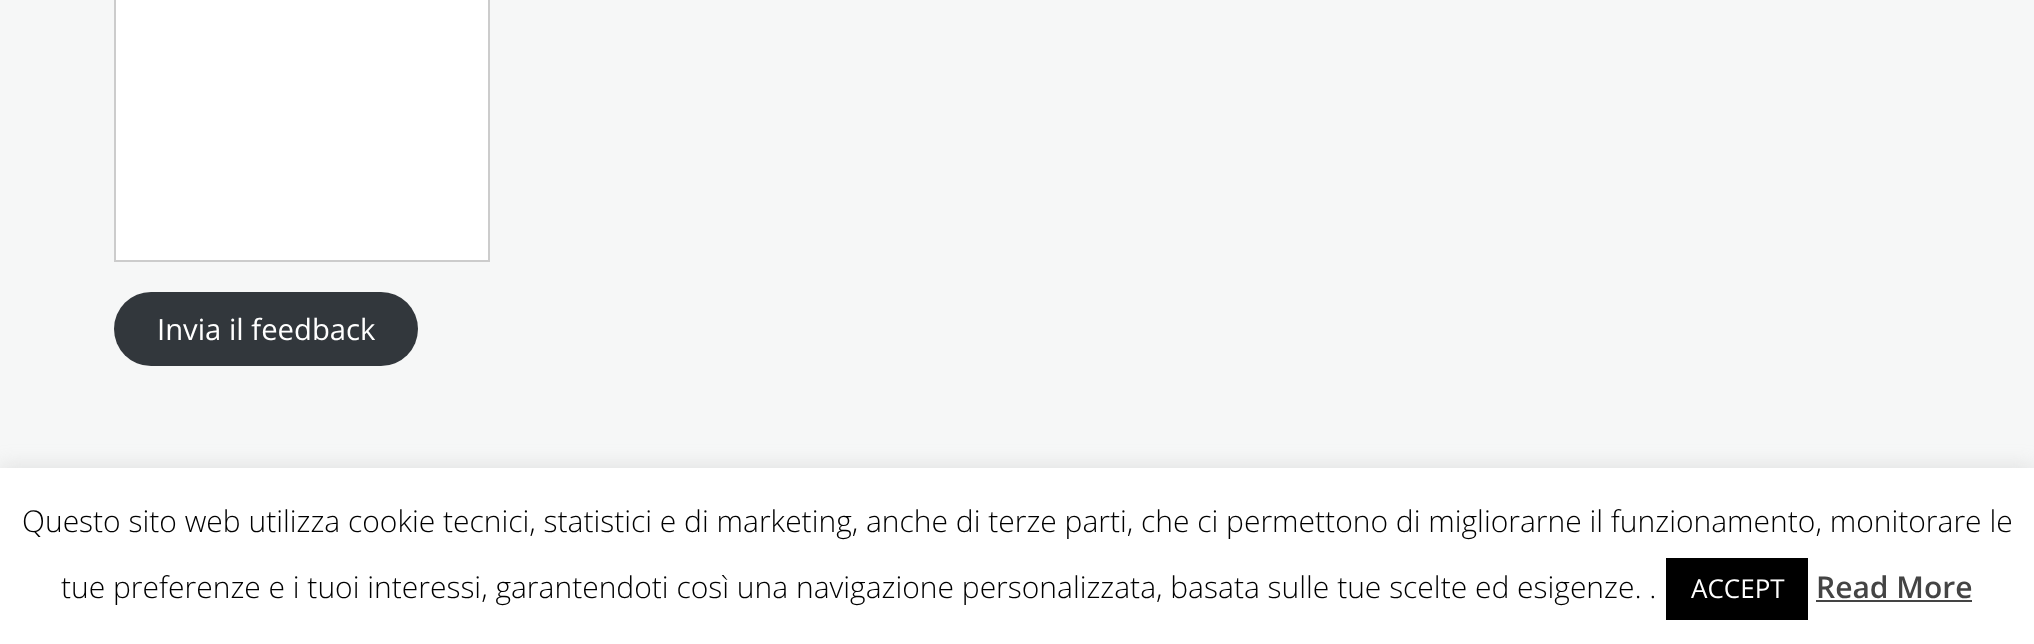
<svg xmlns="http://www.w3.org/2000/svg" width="2034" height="644">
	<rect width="100%" height="100%" fill="#F6F7F7" />
	<rect x="115" y="-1" width="374" height="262" fill="#FFFFFF" stroke="#CCCCCC" stroke-width="2" />
	<rect x="114" y="292" width="304" height="74" rx="37" fill="#32373C" />
	<text x="157" y="340" font-family="Open Sans" font-size="29.25" fill="#FFFFFF">Invia il feedback</text>
	<rect x="0" y="466" width="2034" height="176" fill="#ACABAB" fill-opacity="0.3" filter="blur(10px)" />
	<rect x="0" y="468" width="2034" height="176" fill="#FFFFFF" />
	<g font-family="Open Sans" font-size="30" font-weight="300" fill="#000000">
		<text x="22" y="532">Questo sito web utilizza cookie tecnici, statistici e di marketing, anche di terze parti, che ci permettono di migliorarne il funzionamento, monitorare le</text>
		<text x="61" y="598">tue preferenze e i tuoi interessi, garantendoti così una navigazione personalizzata, basata sulle tue scelte ed esigenze. .</text>
	</g>
	<rect x="1666" y="558" width="142" height="62" fill="#000000" />
	<text x="1691" y="598" font-family="Open Sans" font-size="26" fill="#FFFFFF">ACCEPT</text>
	<text x="1816" y="598" font-family="Open Sans" font-size="30" font-weight="600" fill="#444444">Read More</text>
	<rect x="1816" y="600" width="156" height="2" fill="#444444" />
</svg>
